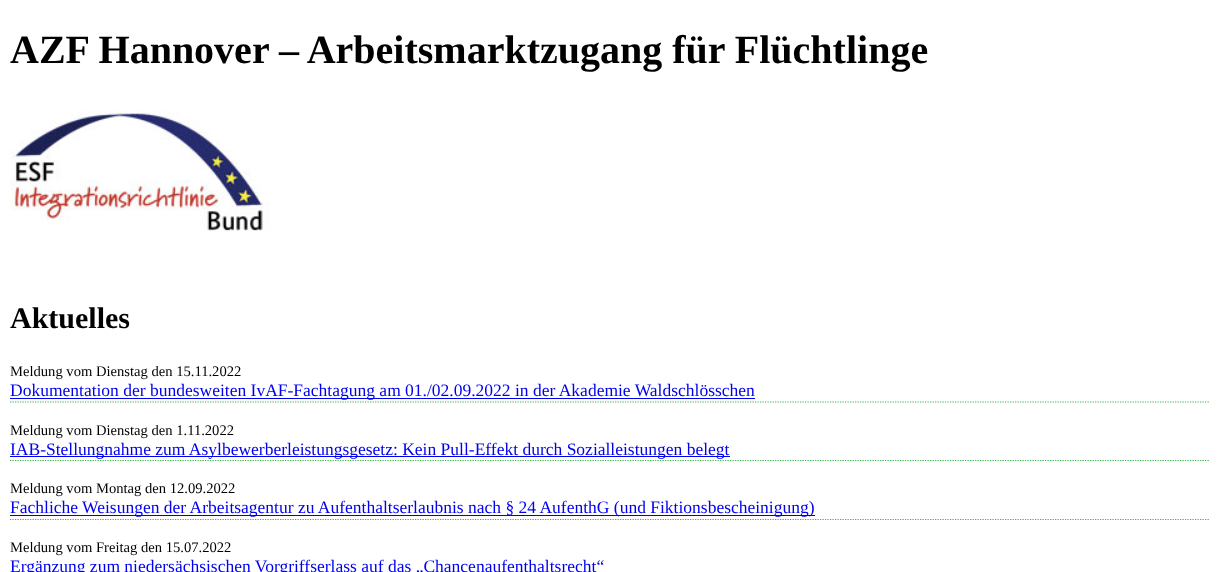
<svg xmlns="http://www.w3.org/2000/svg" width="1219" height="572">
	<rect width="100%" height="100%" fill="#FFFFFF" />
	<text x="10" y="63" font-family="Liberation Serif" font-size="40" font-weight="700" fill="#000000">AZF Hannover – Arbeitsmarktzugang für Flüchtlinge</text>
	<image x="10" y="110" width="260" height="121" href="assets/img1.png" />
	<text x="10" y="328" font-family="Liberation Serif" font-size="30" font-weight="700" fill="#000000">Aktuelles</text>
	<path d="M10 402H1210" fill="none" stroke="#39B54A" stroke-width="1.2" stroke-dasharray="1.25 1.25" />
	<text x="10" y="376" font-family="Liberation Serif" font-size="14.6" fill="#000000">Meldung vom Dienstag den 15.11.2022</text>
	<rect x="10" y="398" width="745" height="1" fill="#0000EE" />
	<text x="10" y="396" font-family="Liberation Serif" font-size="17.5" fill="#0000EE">Dokumentation der bundesweiten IvAF-Fachtagung am 01./02.09.2022 in der Akademie Waldschlösschen</text>
	<path d="M10 460.5H1210" fill="none" stroke="#39B54A" stroke-width="1.2" stroke-dasharray="1.25 1.25" />
	<text x="10" y="435" font-family="Liberation Serif" font-size="14.6" fill="#000000">Meldung vom Dienstag den 1.11.2022</text>
	<rect x="10" y="456" width="720" height="1" fill="#0000EE" />
	<text x="10" y="455" font-family="Liberation Serif" font-size="17.5" fill="#0000EE">IAB-Stellungnahme zum Asylbewerberleistungsgesetz: Kein Pull-Effekt durch Sozialleistungen belegt</text>
	<path d="M10 519.5H1210" fill="none" stroke="#39B54A" stroke-width="1.2" stroke-dasharray="1.25 1.25" />
	<text x="10" y="493" font-family="Liberation Serif" font-size="14.6" fill="#000000">Meldung vom Montag den 12.09.2022</text>
	<rect x="10" y="515" width="805" height="1" fill="#0000EE" />
	<text x="10" y="513" font-family="Liberation Serif" font-size="17.5" fill="#0000EE">Fachliche Weisungen der Arbeitsagentur zu Aufenthaltserlaubnis nach § 24 AufenthG (und Fiktionsbescheinigung)</text>
	<text x="10" y="552" font-family="Liberation Serif" font-size="14.6" fill="#000000">Meldung vom Freitag den 15.07.2022</text>
	<text x="10" y="572" font-family="Liberation Serif" font-size="17.5" fill="#0000EE">Ergänzung zum niedersächsischen Vorgriffserlass auf das „Chancenaufenthaltsrecht“</text>
</svg>
